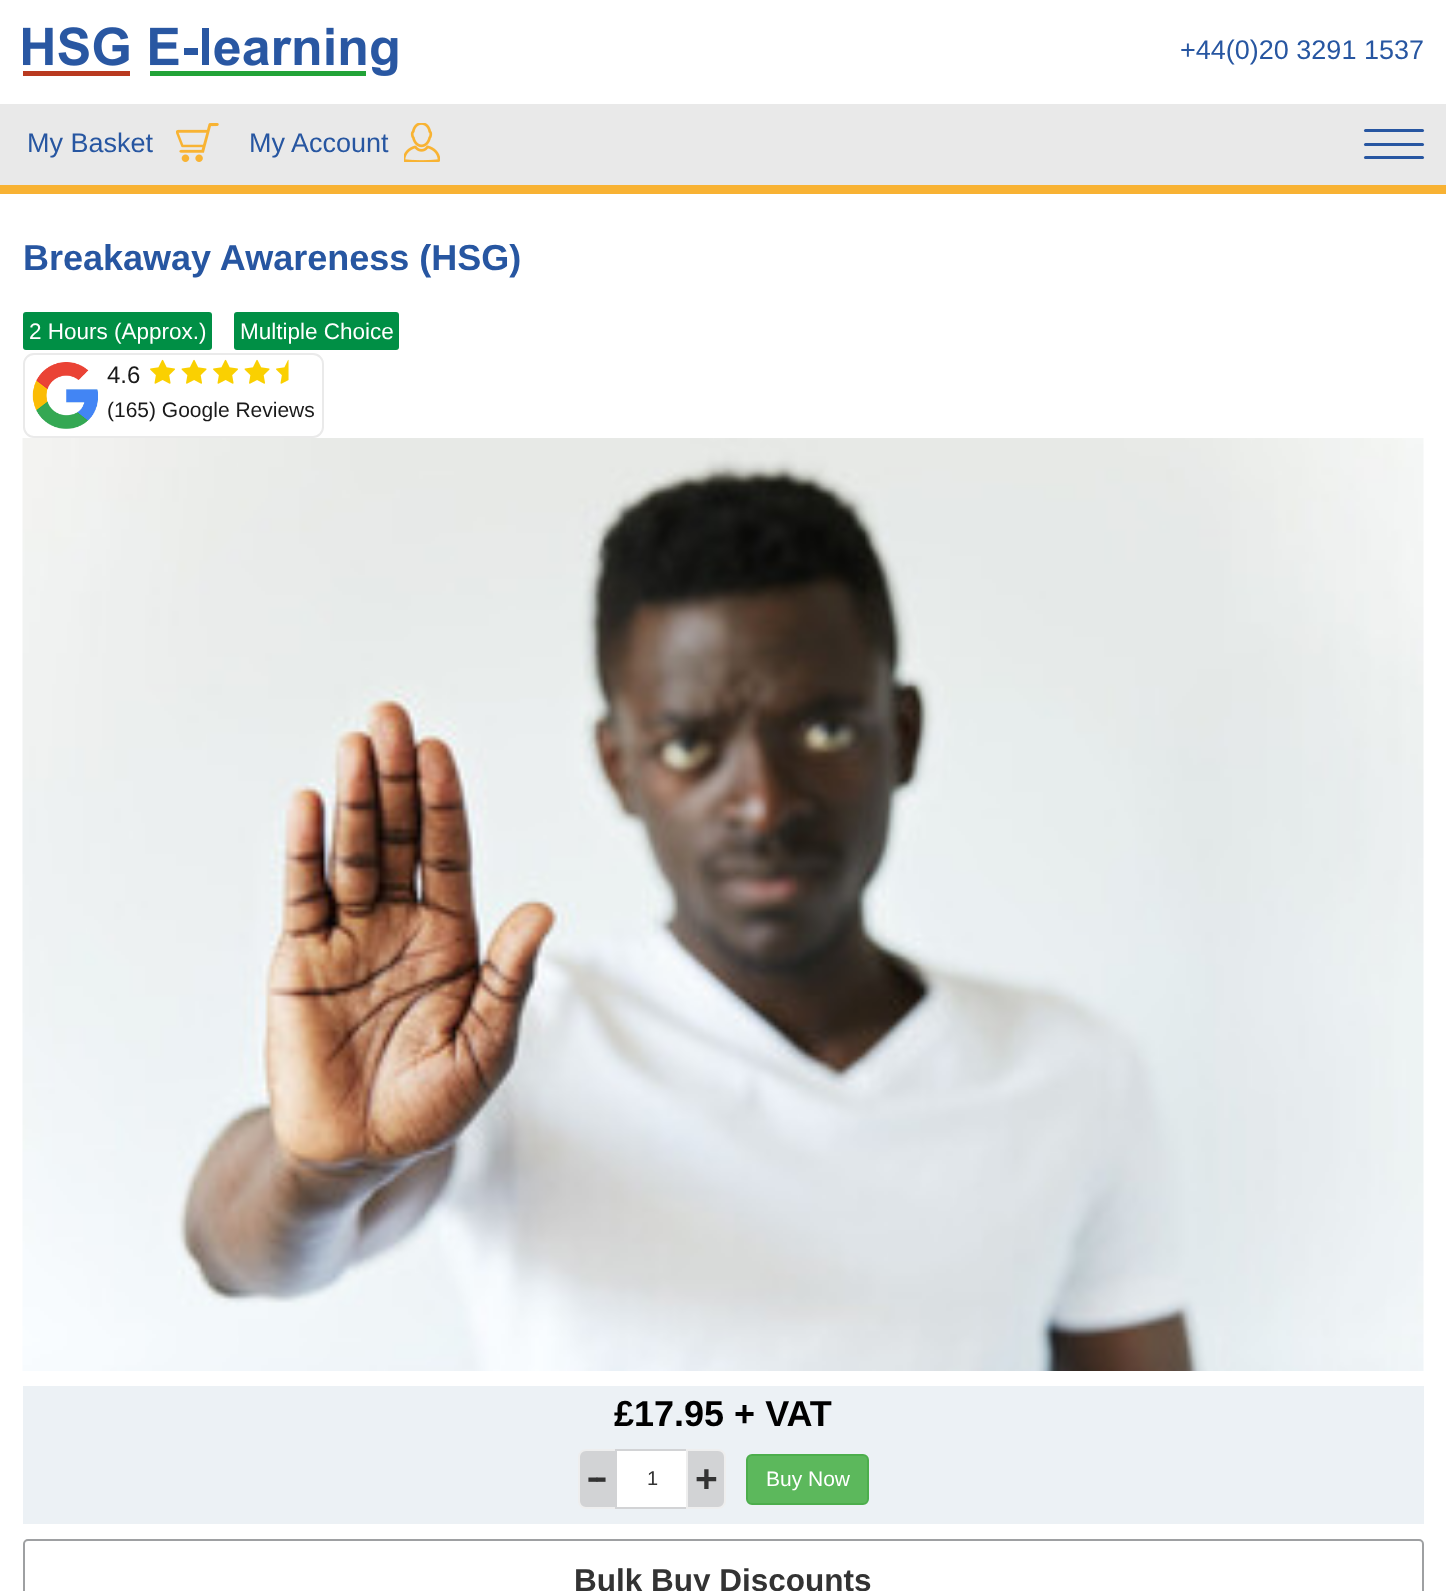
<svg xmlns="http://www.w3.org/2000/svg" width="1446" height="1591">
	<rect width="100%" height="100%" fill="#FFFFFF" />
	<image x="23" y="27" width="375" height="49" href="assets/img1.png" />
	<text x="1180" y="59" font-family="Liberation Sans" font-size="27" fill="#2756A1">+44(0)20 3291 1537</text>
	<rect x="0" y="104" width="1446" height="81" fill="#E9E9E9" />
	<text x="27" y="152" font-family="Liberation Sans" font-size="27" fill="#2756A1">My Basket</text>
	<image x="176" y="123" width="43" height="39" href="assets/img2.png" />
	<text x="249" y="152" font-family="Liberation Sans" font-size="27" fill="#2756A1">My Account</text>
	<image x="404" y="123" width="36" height="39" href="assets/img3.png" />
	<rect x="0" y="185" width="1446" height="9" fill="#F8B233" />
	<rect x="1364" y="129" width="60" height="3" rx="1.5" fill="#2756A1" />
	<rect x="1364" y="143" width="60" height="3" rx="1.5" fill="#2756A1" />
	<rect x="1364" y="156" width="60" height="3" rx="1.5" fill="#2756A1" />
	<text x="23" y="270" font-family="Liberation Sans" font-size="36" font-weight="700" fill="#2756A1">Breakaway Awareness (HSG)</text>
	<rect x="23" y="312" width="189" height="38" rx="3" fill="#008F45" />
	<text x="29" y="339" font-family="Liberation Sans" font-size="22.5" fill="#FFFFFF">2 Hours (Approx.)</text>
	<rect x="234" y="312" width="165" height="38" rx="3" fill="#008F45" />
	<text x="240" y="339" font-family="Liberation Sans" font-size="22.5" fill="#FFFFFF">Multiple Choice</text>
	<rect x="24" y="354" width="299" height="83" rx="10" fill="none" stroke="#EAEAEA" stroke-width="2" />
	<image x="32" y="362" width="66" height="67" href="assets/img4.png" />
	<text x="107" y="383" font-family="Liberation Sans" font-size="24" fill="#1A1A1A">4.6</text>
	<image x="150" y="359" width="25" height="25" href="assets/img5.png" />
	<image x="181" y="359" width="26" height="25" href="assets/img6.png" />
	<image x="213" y="359" width="25" height="25" href="assets/img5.png" />
	<image x="244" y="359" width="26" height="25" href="assets/img6.png" />
	<image x="276" y="359" width="13" height="25" href="assets/img7.png" />
	<text x="107" y="417" font-family="Liberation Sans" font-size="21" fill="#1A1A1A">(165) Google Reviews</text>
	<image x="22" y="438" width="1402" height="933" href="assets/img8.png" />
	<rect x="23" y="1386" width="1401" height="138" fill="#ECF1F5" />
	<text x="614" y="1426" font-family="Liberation Sans" font-size="36" font-weight="700" fill="#000000">£17.95 + VAT</text>
	<path d="M586 1450H617V1508H586C582 1508 579 1505 579 1501V1457C579 1453 582 1450 586 1450Z" fill="#D2D3D5" stroke="#EEEEEE" stroke-width="2" />
	<rect x="617" y="1451" width="69" height="56" fill="#FFFFFF" />
	<rect x="616" y="1450" width="73" height="58" fill="none" stroke="#D2D3D5" stroke-width="2" />
	<text x="647" y="1485" font-family="Liberation Sans" font-size="20" fill="#333333">1</text>
	<path d="M687 1450H718C722 1450 725 1453 725 1457V1501C725 1505 722 1508 718 1508H687Z" fill="#D2D3D5" stroke="#EEEEEE" stroke-width="2" />
	<text x="695" y="1492" font-family="Liberation Sans" font-size="39" font-weight="700" fill="#333333">+</text>
	<text x="587" y="1489" font-family="Liberation Sans" font-size="36" font-weight="700" letter-spacing="-4" fill="#333333">--</text>
	<rect x="747" y="1455" width="121" height="49" rx="5" fill="#5CB85C" stroke="#4CAE4C" stroke-width="2" />
	<text x="766" y="1486" font-family="Liberation Sans" font-size="21" fill="#FFFFFF">Buy Now</text>
	<rect x="24" y="1540" width="1399" height="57" rx="4" fill="none" stroke="#9EA0A2" stroke-width="2" />
	<text x="574" y="1591" font-family="Liberation Sans" font-size="31.5" font-weight="700" fill="#333333">Bulk Buy Discounts</text>
</svg>
